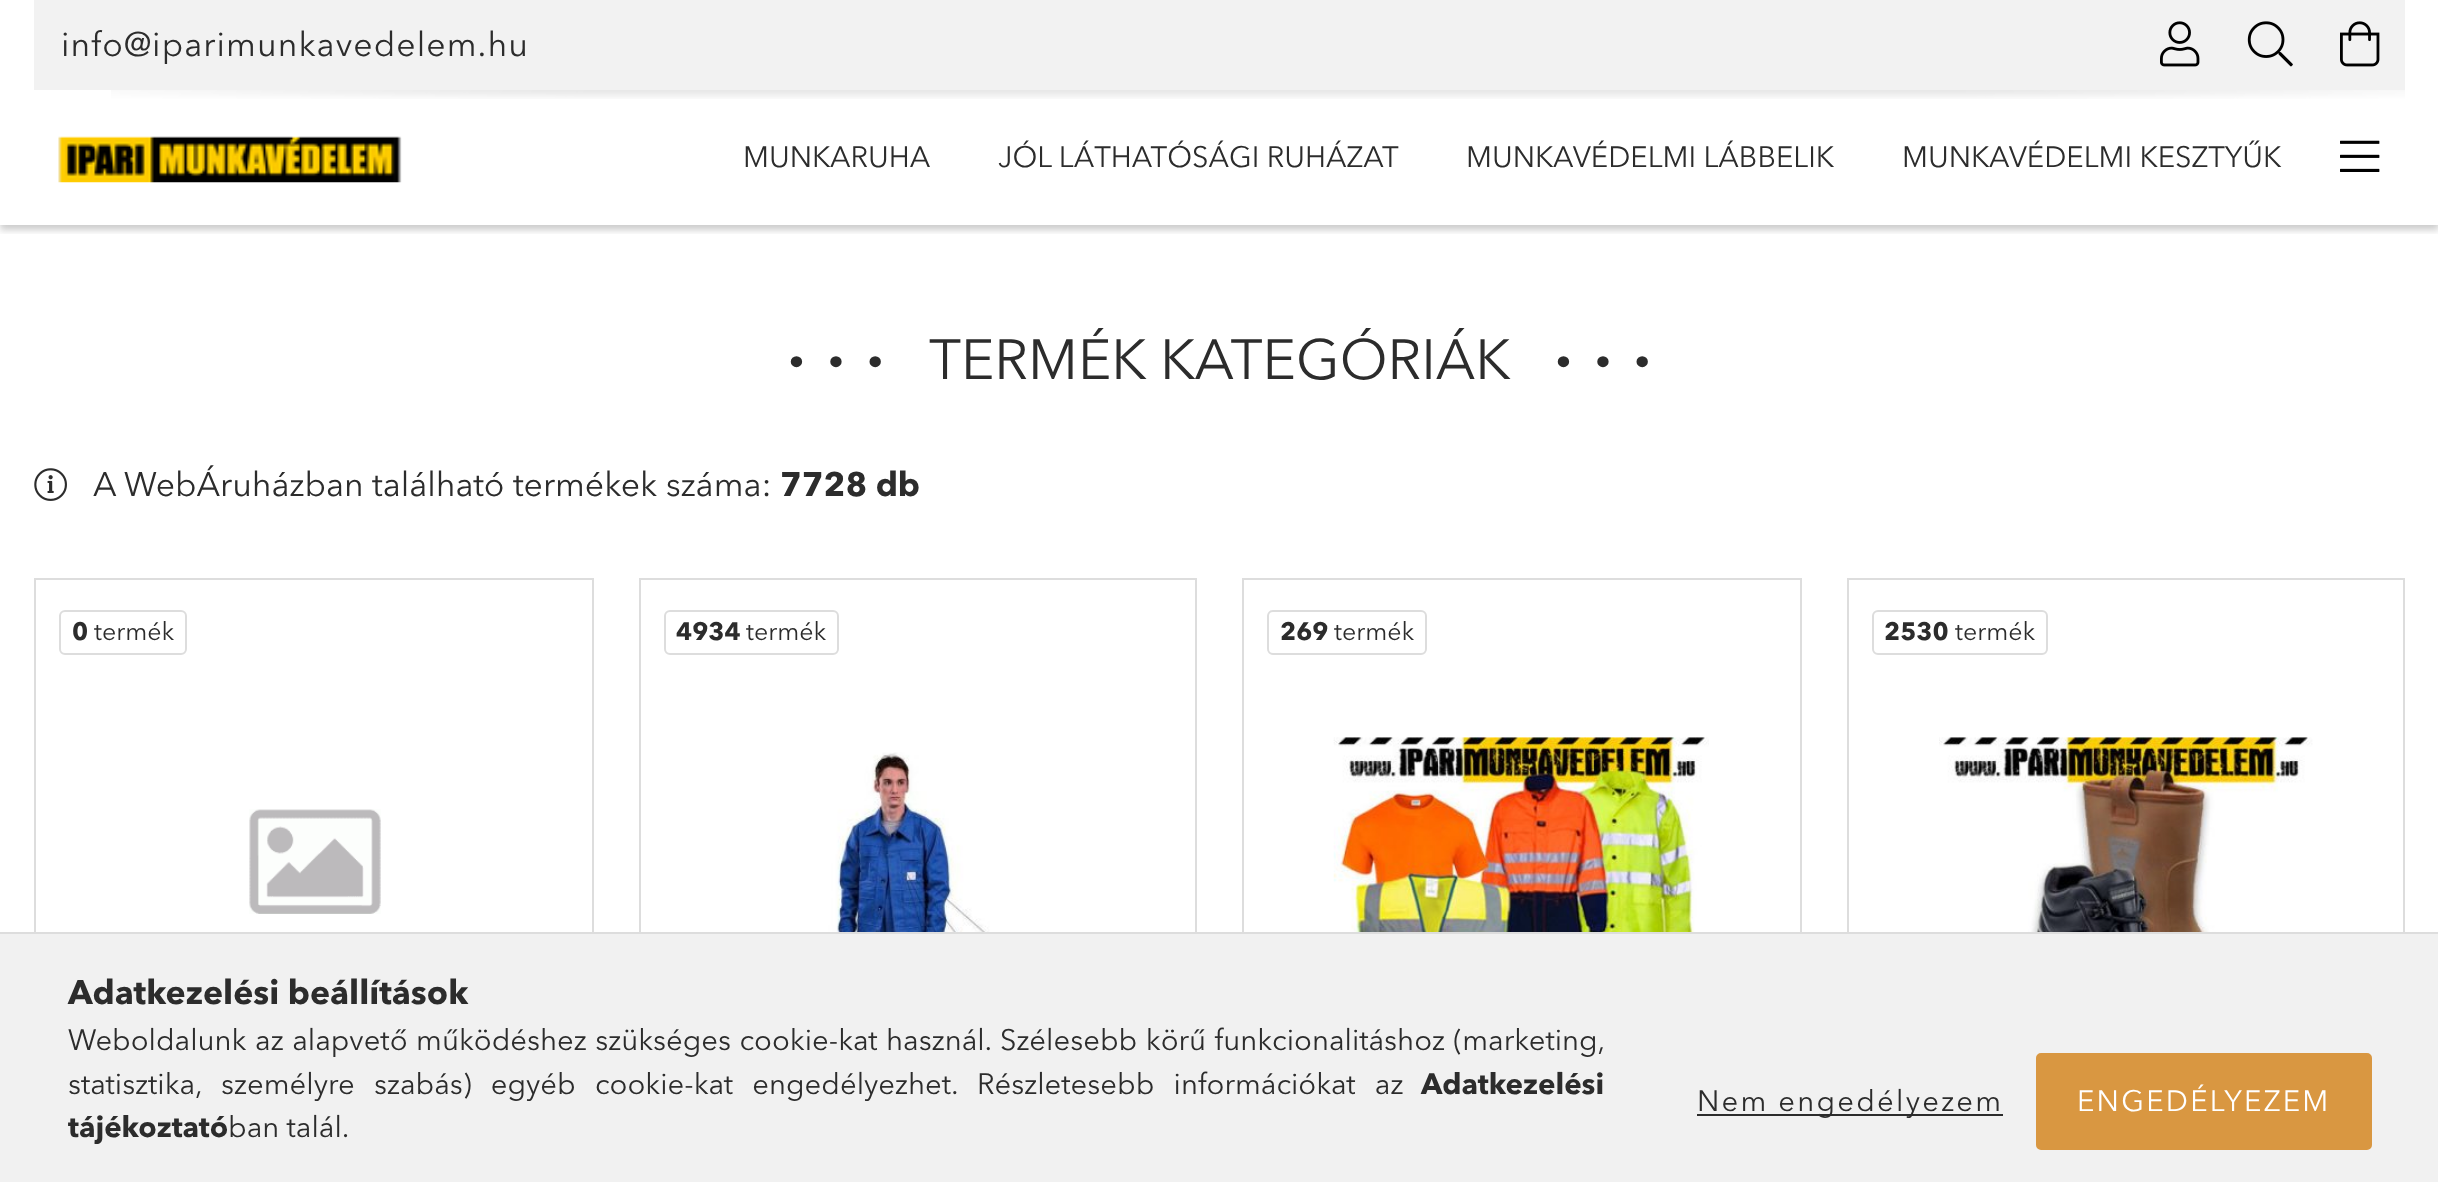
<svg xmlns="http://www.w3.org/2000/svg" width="2438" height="1182">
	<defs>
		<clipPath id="clip1"><rect x="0" y="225" width="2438" height="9" /></clipPath>
	</defs>
	<rect width="100%" height="100%" fill="#FFFFFF" />
	<g clip-path="url(#clip1)">
		<rect x="0" y="5" width="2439" height="225" fill="#000000" fill-opacity="0.2" filter="blur(3.5px)" />
	</g>
	<rect x="34" y="0" width="2371" height="90" fill="#F2F2F2" />
	<text x="61" y="56" font-family="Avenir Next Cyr" font-size="33.75" letter-spacing="1.1" fill="#2C2C2C">info@iparimunkavedelem.hu</text>
	<image x="2160" y="21" width="40" height="46" href="assets/img1.png" />
	<image x="2247" y="21" width="46" height="46" href="assets/img2.png" />
	<image x="2340" y="21" width="40" height="46" href="assets/img3.png" />
	<image x="111" y="90" width="2294" height="9" href="assets/img4.png" />
	<image x="58" y="136" width="344" height="47" href="assets/img5.png" />
	<g font-family="Avenir Next Cyr" font-size="29.25" fill="#2C2C2C">
		<text x="743" y="167">MUNKARUHA</text>
		<text x="998" y="167">JÓL LÁTHATÓSÁGI RUHÁZAT</text>
		<text x="1466" y="167">MUNKAVÉDELMI LÁBBELIK</text>
		<text x="1902" y="167">MUNKAVÉDELMI KESZTYŰK</text>
	</g>
	<image x="2340" y="140" width="40" height="32" href="assets/img6.png" />
	<text x="788" y="378" font-family="Avenir Next Cyr" font-size="56.25" font-weight="700" letter-spacing="22.5" fill="#2C2C2C">∙∙∙</text>
	<text x="929" y="379" font-family="Avenir Next Cyr" font-size="56.25" fill="#2C2C2C">TERMÉK KATEGÓRIÁK</text>
	<text x="1555" y="378" font-family="Avenir Next Cyr" font-size="56.25" font-weight="700" letter-spacing="22.5" fill="#2C2C2C">∙∙∙</text>
	<image x="34" y="468" width="33" height="33" href="assets/img7.png" />
	<text x="93" y="496" font-family="Avenir Next Cyr" font-size="33.75" fill="#2C2C2C">A WebÁruházban található termékek száma:</text>
	<text x="780" y="496" font-family="Avenir Next Cyr" font-size="33.75" font-weight="700" fill="#2C2C2C">7728 db</text>
	<rect x="35" y="579" width="558" height="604" fill="none" stroke="#DDDDDD" stroke-width="2" />
	<rect x="60" y="611" width="126" height="43" rx="5" fill="none" stroke="#DDDDDD" stroke-width="2" />
	<text x="72" y="640" font-family="Avenir Next Cyr" font-size="25" font-weight="700" fill="#2C2C2C">0</text>
	<text x="94" y="640" font-family="Avenir Next Cyr" font-size="25" fill="#2C2C2C">termék</text>
	<image x="249" y="809" width="132" height="105" href="assets/img8.png" />
	<rect x="640" y="579" width="556" height="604" fill="none" stroke="#DDDDDD" stroke-width="2" />
	<rect x="665" y="611" width="173" height="43" rx="5" fill="none" stroke="#DDDDDD" stroke-width="2" />
	<text x="676" y="640" font-family="Avenir Next Cyr" font-size="25" font-weight="700" fill="#2C2C2C">4934</text>
	<text x="746" y="640" font-family="Avenir Next Cyr" font-size="25" fill="#2C2C2C">termék</text>
	<image x="801" y="752" width="216" height="180" href="assets/img9.png" />
	<rect x="1243" y="579" width="558" height="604" fill="none" stroke="#DDDDDD" stroke-width="2" />
	<rect x="1268" y="611" width="158" height="43" rx="5" fill="none" stroke="#DDDDDD" stroke-width="2" />
	<text x="1280" y="640" font-family="Avenir Next Cyr" font-size="25" font-weight="700" fill="#2C2C2C">269</text>
	<text x="1334" y="640" font-family="Avenir Next Cyr" font-size="25" fill="#2C2C2C">termék</text>
	<image x="1333" y="737" width="376" height="195" href="assets/img10.png" />
	<rect x="1848" y="579" width="556" height="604" fill="none" stroke="#DDDDDD" stroke-width="2" />
	<rect x="1873" y="611" width="174" height="43" rx="5" fill="none" stroke="#DDDDDD" stroke-width="2" />
	<text x="1884" y="640" font-family="Avenir Next Cyr" font-size="25" font-weight="700" fill="#2C2C2C">2530</text>
	<text x="1955" y="640" font-family="Avenir Next Cyr" font-size="25" fill="#2C2C2C">termék</text>
	<image x="1939" y="737" width="374" height="195" href="assets/img11.png" />
	<rect x="0" y="934" width="2438" height="248" fill="#F1F1F1" />
	<rect x="0" y="932" width="2438" height="2" fill="#DDDDDD" />
	<text x="68" y="1004" font-family="Avenir Next Cyr" font-size="33.75" font-weight="700" fill="#2C2C2C">Adatkezelési beállítások</text>
	<g font-family="Avenir Next Cyr" font-size="29.25" fill="#2C2C2C">
		<text x="68" y="1050" word-spacing="1.25">Weboldalunk az alapvető működéshez szükséges cookie-kat használ. Szélesebb körű funkcionalitáshoz (marketing,</text>
		<text x="68" y="1094" word-spacing="12">statisztika, személyre szabás) egyéb cookie-kat engedélyezhet. Részletesebb információkat az</text>
	</g>
	<g font-family="Avenir Next Cyr" font-size="29.25" font-weight="700" fill="#2C2C2C">
		<text x="1421" y="1094">Adatkezelési</text>
		<text x="68" y="1137">tájékoztató</text>
	</g>
	<text x="228" y="1137" font-family="Avenir Next Cyr" font-size="29.25" fill="#2C2C2C">ban talál.</text>
	<rect x="1697" y="1114" width="306" height="2" fill="#2C2C2C" />
	<text x="1697" y="1111" font-family="Avenir Next Cyr" font-size="29.25" letter-spacing="2.25" fill="#2C2C2C">Nem engedélyezem</text>
	<rect x="2037" y="1054" width="334" height="95" rx="4" fill="#D99741" stroke="#D99741" stroke-width="2" />
	<text x="2077" y="1111" font-family="Avenir Next Cyr" font-size="29.25" letter-spacing="2.25" fill="#FFFFFF">ENGEDÉLYEZEM</text>
</svg>
